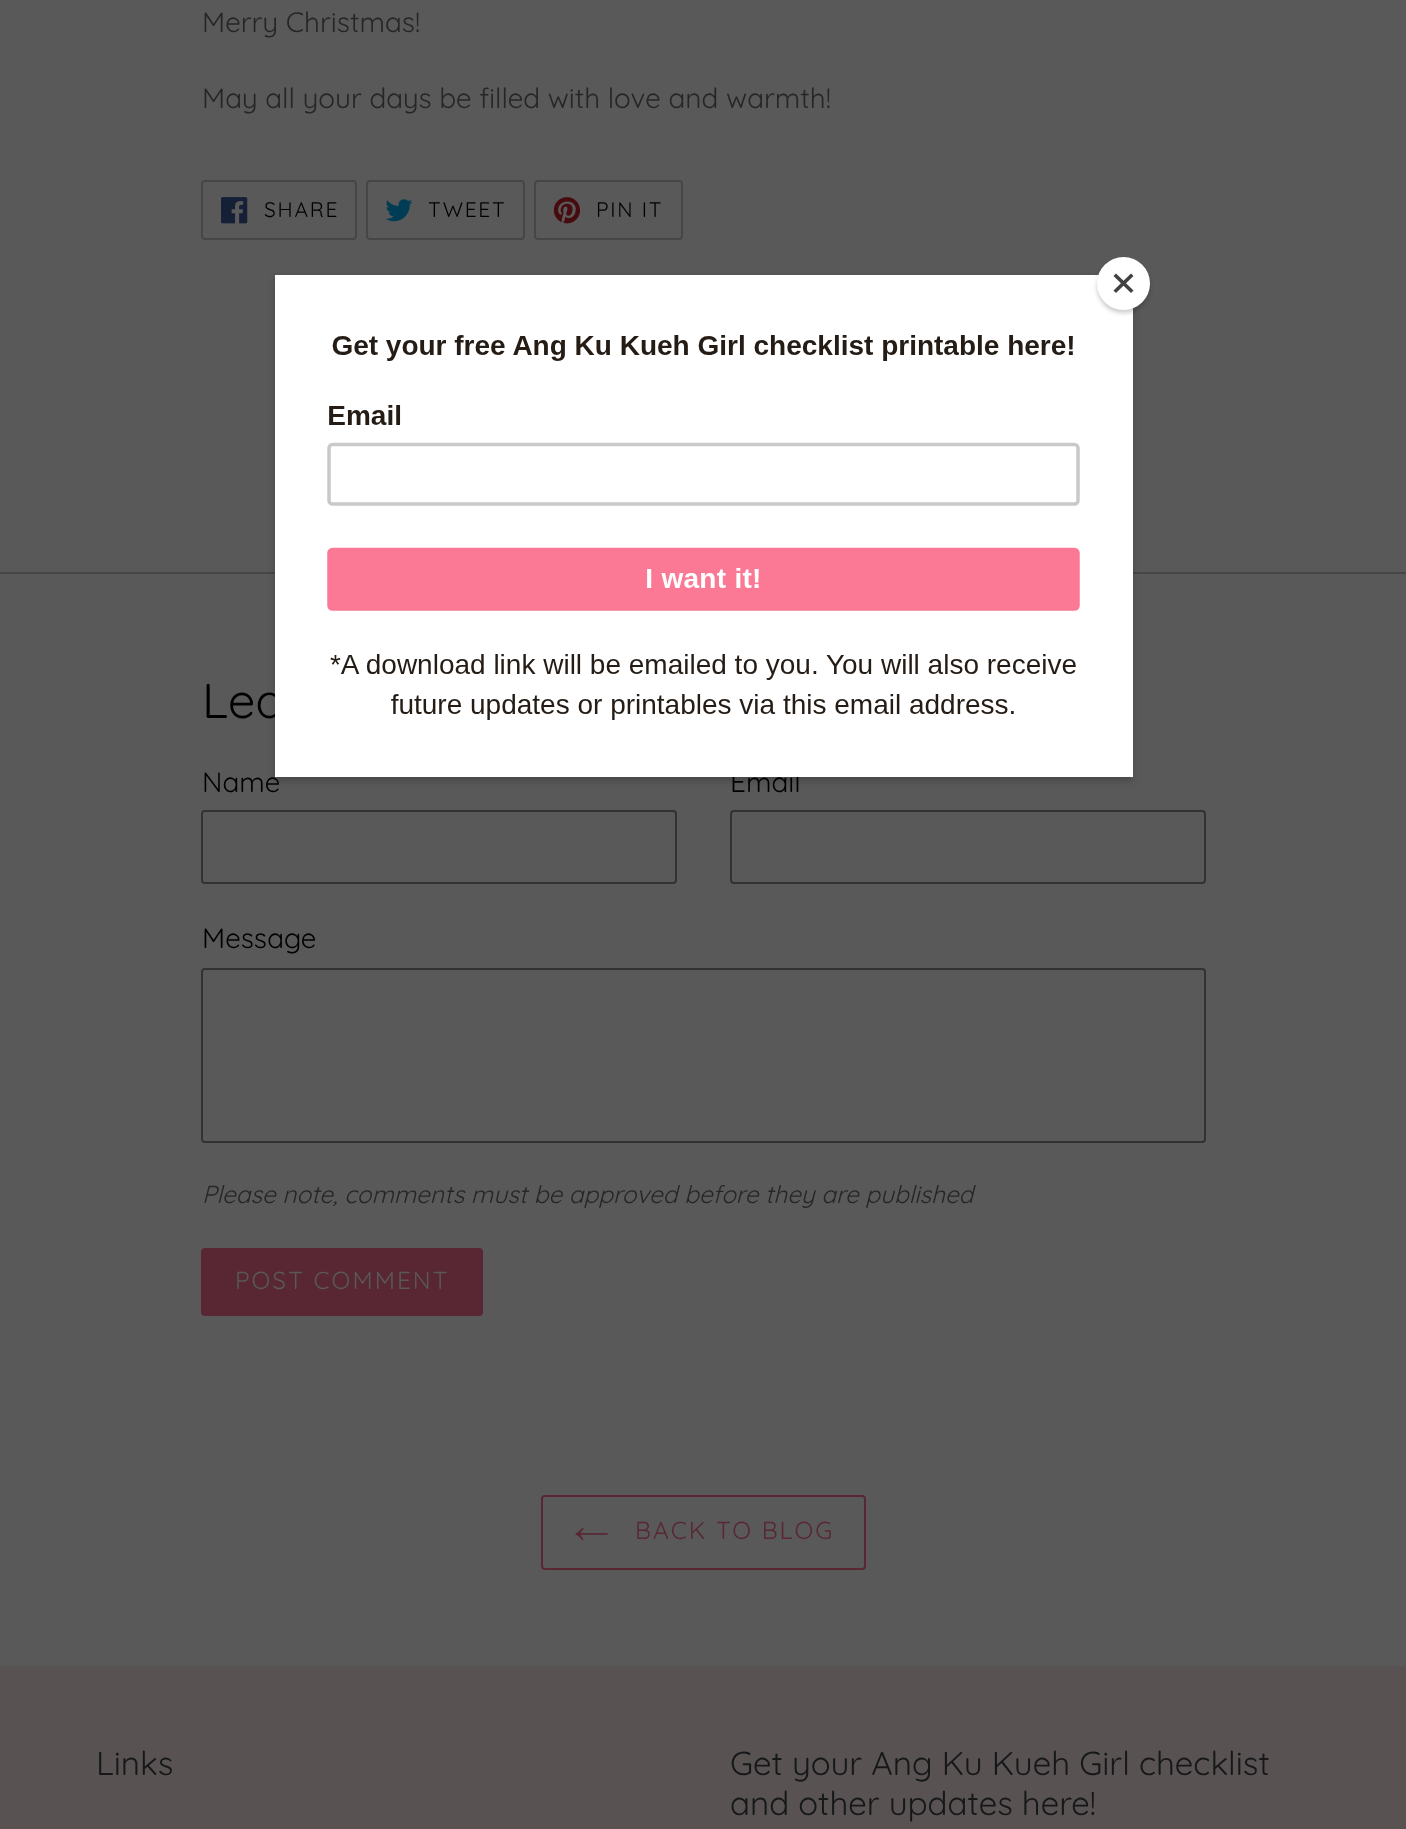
<svg xmlns="http://www.w3.org/2000/svg" width="1406" height="1829">
	<rect width="100%" height="100%" fill="#595959" />
	<g font-family="Quicksand" font-size="28" fill="#262626">
		<text x="202" y="32">Merry Christmas!</text>
		<text x="202" y="108">May all your days be filled with love and warmth!</text>
	</g>
	<rect x="202" y="181" width="154" height="58" rx="3" fill="none" stroke="#464646" stroke-width="2" />
	<image x="221" y="197" width="27" height="27" href="assets/img1.png" />
	<text x="264" y="217" font-family="Quicksand" font-size="21" letter-spacing="1.75" fill="#000000">SHARE</text>
	<rect x="367" y="181" width="157" height="58" rx="3" fill="none" stroke="#464646" stroke-width="2" />
	<image x="385" y="199" width="28" height="23" href="assets/img2.png" />
	<text x="428" y="217" font-family="Quicksand" font-size="21" letter-spacing="1.75" fill="#000000">TWEET</text>
	<rect x="535" y="181" width="147" height="58" rx="3" fill="none" stroke="#464646" stroke-width="2" />
	<image x="553" y="197" width="28" height="27" href="assets/img3.png" />
	<text x="596" y="217" font-family="Quicksand" font-size="21" letter-spacing="1.75" fill="#000000">PIN IT</text>
	<rect x="0" y="572" width="1406" height="2" fill="#464646" />
	<text x="202" y="718" font-family="Quicksand" font-size="49" fill="#000000">Lea</text>
	<text x="202" y="792" font-family="Quicksand" font-size="28" fill="#000000">Name</text>
	<rect x="202" y="811" width="474" height="72" rx="3" fill="none" stroke="#323232" stroke-width="2" />
	<text x="730" y="792" font-family="Quicksand" font-size="28" fill="#000000">Email</text>
	<rect x="731" y="811" width="474" height="72" rx="3" fill="none" stroke="#323232" stroke-width="2" />
	<text x="202" y="948" font-family="Quicksand" font-size="28" fill="#000000">Message</text>
	<rect x="202" y="969" width="1003" height="173" rx="3" fill="none" stroke="#323232" stroke-width="2" />
	<text x="202" y="1203" font-family="Quicksand" font-size="24.5" font-style="italic" fill="#262626">Please note, comments must be approved before they are published</text>
	<rect x="201" y="1248" width="282" height="68" rx="4" fill="#592733" />
	<text x="235" y="1289" font-family="Quicksand" font-size="24.5" letter-spacing="2" fill="#595959">POST COMMENT</text>
	<rect x="542" y="1496" width="323" height="73" rx="3" fill="none" stroke="#592733" stroke-width="2" />
	<image x="575" y="1527" width="33" height="14" href="assets/img4.png" />
	<text x="635" y="1539" font-family="Quicksand" font-size="24.5" letter-spacing="2" fill="#592733">BACK TO BLOG</text>
	<rect x="0" y="1666" width="1406" height="163" fill="#595253" />
	<g font-family="Quicksand" font-size="33.25" fill="#151719">
		<text x="96" y="1775">Links</text>
		<text x="730" y="1775">Get your Ang Ku Kueh Girl checklist</text>
		<text x="730" y="1815">and other updates here!</text>
	</g>
	<rect x="275" y="278" width="857" height="503" fill="#000000" fill-opacity="0.2" filter="blur(3.5px)" />
	<image x="275" y="275" width="858" height="502" href="assets/img5.png" />
	<rect x="1097" y="261" width="53" height="52" rx="26" fill="#000000" fill-opacity="0.2" filter="blur(2px)" />
	<circle cx="1123.5" cy="283.5" r="26.5" fill="#FFFFFF" />
	<path d="M1131 273.5L1133.5 276L1116 293L1113.5 290.5Z" fill="#414141" />
	<path d="M1113.5 276L1116 273.5L1133.5 290.5L1131 293Z" fill="#414141" />
</svg>
